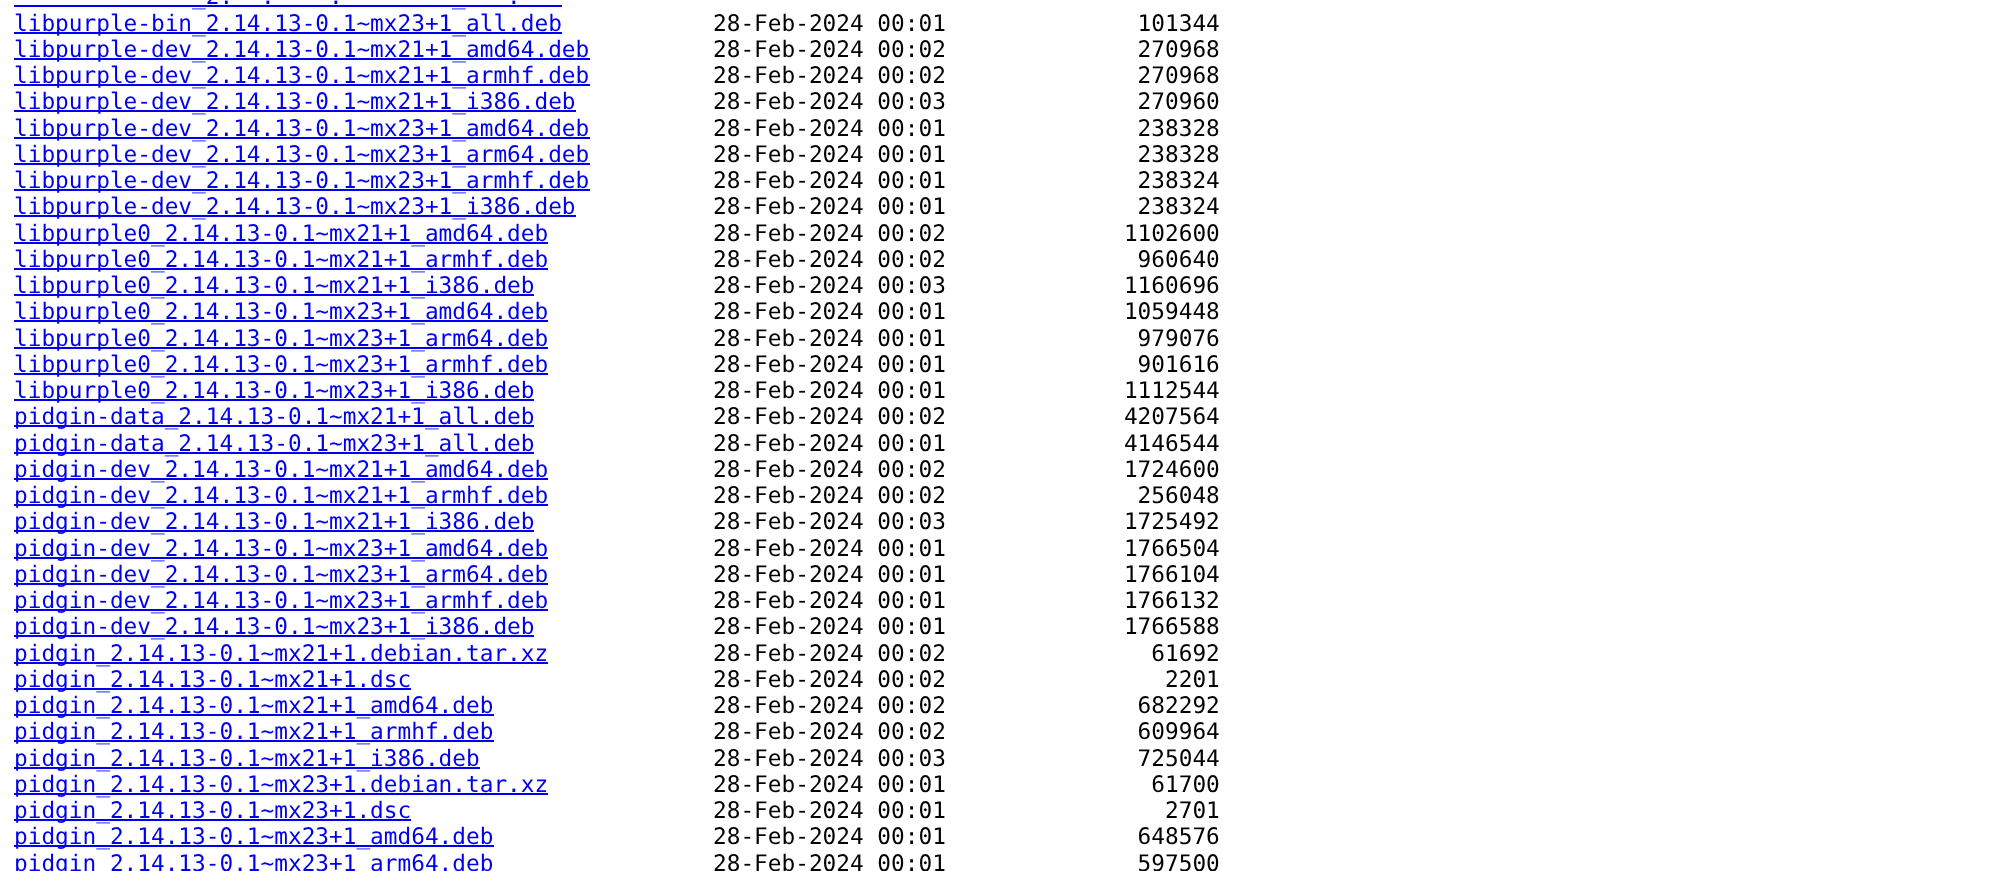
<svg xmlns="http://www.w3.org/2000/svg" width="1990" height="871">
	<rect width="100%" height="100%" fill="#FFFFFF" />
	<rect x="14" y="5" width="548" height="2" fill="#0000EE" />
	<g font-family="DejaVu Sans Mono" font-size="22.75" fill="#0000EE">
		<text x="192" y="4">_2.</text>
		<text x="261" y="4">.</text>
		<text x="329" y="4">.</text>
		<text x="507" y="4">.</text>
		<text x="452" y="4">_</text>
	</g>
	<rect x="14" y="32" width="548" height="2" fill="#0000EE" />
	<text x="14" y="31" font-family="DejaVu Sans Mono" font-size="22.75" fill="#0000EE">libpurple-bin_2.14.13-0.1~mx23+1_all.deb</text>
	<text x="713" y="31" font-family="DejaVu Sans Mono" font-size="22.75" fill="#000000" xml:space="preserve">28-Feb-2024 00:01              101344</text>
	<rect x="14" y="58" width="576" height="2" fill="#0000EE" />
	<text x="14" y="57" font-family="DejaVu Sans Mono" font-size="22.75" fill="#0000EE">libpurple-dev_2.14.13-0.1~mx21+1_amd64.deb</text>
	<text x="713" y="57" font-family="DejaVu Sans Mono" font-size="22.75" fill="#000000" xml:space="preserve">28-Feb-2024 00:02              270968</text>
	<rect x="14" y="84" width="576" height="2" fill="#0000EE" />
	<text x="14" y="83" font-family="DejaVu Sans Mono" font-size="22.75" fill="#0000EE">libpurple-dev_2.14.13-0.1~mx21+1_armhf.deb</text>
	<text x="713" y="83" font-family="DejaVu Sans Mono" font-size="22.75" fill="#000000" xml:space="preserve">28-Feb-2024 00:02              270968</text>
	<rect x="14" y="110" width="562" height="2" fill="#0000EE" />
	<text x="14" y="109" font-family="DejaVu Sans Mono" font-size="22.75" fill="#0000EE">libpurple-dev_2.14.13-0.1~mx21+1_i386.deb</text>
	<text x="713" y="109" font-family="DejaVu Sans Mono" font-size="22.75" fill="#000000" xml:space="preserve">28-Feb-2024 00:03              270960</text>
	<rect x="14" y="137" width="576" height="2" fill="#0000EE" />
	<text x="14" y="136" font-family="DejaVu Sans Mono" font-size="22.75" fill="#0000EE">libpurple-dev_2.14.13-0.1~mx23+1_amd64.deb</text>
	<text x="713" y="136" font-family="DejaVu Sans Mono" font-size="22.75" fill="#000000" xml:space="preserve">28-Feb-2024 00:01              238328</text>
	<rect x="14" y="163" width="576" height="2" fill="#0000EE" />
	<text x="14" y="162" font-family="DejaVu Sans Mono" font-size="22.75" fill="#0000EE">libpurple-dev_2.14.13-0.1~mx23+1_arm64.deb</text>
	<text x="713" y="162" font-family="DejaVu Sans Mono" font-size="22.75" fill="#000000" xml:space="preserve">28-Feb-2024 00:01              238328</text>
	<rect x="14" y="189" width="576" height="2" fill="#0000EE" />
	<text x="14" y="188" font-family="DejaVu Sans Mono" font-size="22.75" fill="#0000EE">libpurple-dev_2.14.13-0.1~mx23+1_armhf.deb</text>
	<text x="713" y="188" font-family="DejaVu Sans Mono" font-size="22.75" fill="#000000" xml:space="preserve">28-Feb-2024 00:01              238324</text>
	<rect x="14" y="215" width="562" height="2" fill="#0000EE" />
	<text x="14" y="214" font-family="DejaVu Sans Mono" font-size="22.75" fill="#0000EE">libpurple-dev_2.14.13-0.1~mx23+1_i386.deb</text>
	<text x="713" y="214" font-family="DejaVu Sans Mono" font-size="22.75" fill="#000000" xml:space="preserve">28-Feb-2024 00:01              238324</text>
	<rect x="14" y="242" width="534" height="2" fill="#0000EE" />
	<text x="14" y="241" font-family="DejaVu Sans Mono" font-size="22.75" fill="#0000EE">libpurple0_2.14.13-0.1~mx21+1_amd64.deb</text>
	<text x="713" y="241" font-family="DejaVu Sans Mono" font-size="22.75" fill="#000000" xml:space="preserve">28-Feb-2024 00:02             1102600</text>
	<rect x="14" y="268" width="534" height="2" fill="#0000EE" />
	<text x="14" y="267" font-family="DejaVu Sans Mono" font-size="22.75" fill="#0000EE">libpurple0_2.14.13-0.1~mx21+1_armhf.deb</text>
	<text x="713" y="267" font-family="DejaVu Sans Mono" font-size="22.75" fill="#000000" xml:space="preserve">28-Feb-2024 00:02              960640</text>
	<rect x="14" y="294" width="520" height="2" fill="#0000EE" />
	<text x="14" y="293" font-family="DejaVu Sans Mono" font-size="22.75" fill="#0000EE">libpurple0_2.14.13-0.1~mx21+1_i386.deb</text>
	<text x="713" y="293" font-family="DejaVu Sans Mono" font-size="22.75" fill="#000000" xml:space="preserve">28-Feb-2024 00:03             1160696</text>
	<rect x="14" y="320" width="534" height="2" fill="#0000EE" />
	<text x="14" y="319" font-family="DejaVu Sans Mono" font-size="22.75" fill="#0000EE">libpurple0_2.14.13-0.1~mx23+1_amd64.deb</text>
	<text x="713" y="319" font-family="DejaVu Sans Mono" font-size="22.75" fill="#000000" xml:space="preserve">28-Feb-2024 00:01             1059448</text>
	<rect x="14" y="347" width="534" height="2" fill="#0000EE" />
	<text x="14" y="346" font-family="DejaVu Sans Mono" font-size="22.75" fill="#0000EE">libpurple0_2.14.13-0.1~mx23+1_arm64.deb</text>
	<text x="713" y="346" font-family="DejaVu Sans Mono" font-size="22.75" fill="#000000" xml:space="preserve">28-Feb-2024 00:01              979076</text>
	<rect x="14" y="373" width="534" height="2" fill="#0000EE" />
	<text x="14" y="372" font-family="DejaVu Sans Mono" font-size="22.75" fill="#0000EE">libpurple0_2.14.13-0.1~mx23+1_armhf.deb</text>
	<text x="713" y="372" font-family="DejaVu Sans Mono" font-size="22.75" fill="#000000" xml:space="preserve">28-Feb-2024 00:01              901616</text>
	<rect x="14" y="399" width="520" height="2" fill="#0000EE" />
	<text x="14" y="398" font-family="DejaVu Sans Mono" font-size="22.75" fill="#0000EE">libpurple0_2.14.13-0.1~mx23+1_i386.deb</text>
	<text x="713" y="398" font-family="DejaVu Sans Mono" font-size="22.75" fill="#000000" xml:space="preserve">28-Feb-2024 00:01             1112544</text>
	<rect x="14" y="425" width="520" height="2" fill="#0000EE" />
	<text x="14" y="424" font-family="DejaVu Sans Mono" font-size="22.75" fill="#0000EE">pidgin-data_2.14.13-0.1~mx21+1_all.deb</text>
	<text x="713" y="424" font-family="DejaVu Sans Mono" font-size="22.75" fill="#000000" xml:space="preserve">28-Feb-2024 00:02             4207564</text>
	<rect x="14" y="452" width="520" height="2" fill="#0000EE" />
	<text x="14" y="451" font-family="DejaVu Sans Mono" font-size="22.75" fill="#0000EE">pidgin-data_2.14.13-0.1~mx23+1_all.deb</text>
	<text x="713" y="451" font-family="DejaVu Sans Mono" font-size="22.75" fill="#000000" xml:space="preserve">28-Feb-2024 00:01             4146544</text>
	<rect x="14" y="478" width="534" height="2" fill="#0000EE" />
	<text x="14" y="477" font-family="DejaVu Sans Mono" font-size="22.75" fill="#0000EE">pidgin-dev_2.14.13-0.1~mx21+1_amd64.deb</text>
	<text x="713" y="477" font-family="DejaVu Sans Mono" font-size="22.75" fill="#000000" xml:space="preserve">28-Feb-2024 00:02             1724600</text>
	<rect x="14" y="504" width="534" height="2" fill="#0000EE" />
	<text x="14" y="503" font-family="DejaVu Sans Mono" font-size="22.75" fill="#0000EE">pidgin-dev_2.14.13-0.1~mx21+1_armhf.deb</text>
	<text x="713" y="503" font-family="DejaVu Sans Mono" font-size="22.75" fill="#000000" xml:space="preserve">28-Feb-2024 00:02              256048</text>
	<rect x="14" y="530" width="520" height="2" fill="#0000EE" />
	<text x="14" y="529" font-family="DejaVu Sans Mono" font-size="22.75" fill="#0000EE">pidgin-dev_2.14.13-0.1~mx21+1_i386.deb</text>
	<text x="713" y="529" font-family="DejaVu Sans Mono" font-size="22.75" fill="#000000" xml:space="preserve">28-Feb-2024 00:03             1725492</text>
	<rect x="14" y="557" width="534" height="2" fill="#0000EE" />
	<text x="14" y="556" font-family="DejaVu Sans Mono" font-size="22.75" fill="#0000EE">pidgin-dev_2.14.13-0.1~mx23+1_amd64.deb</text>
	<text x="713" y="556" font-family="DejaVu Sans Mono" font-size="22.75" fill="#000000" xml:space="preserve">28-Feb-2024 00:01             1766504</text>
	<rect x="14" y="583" width="534" height="2" fill="#0000EE" />
	<text x="14" y="582" font-family="DejaVu Sans Mono" font-size="22.75" fill="#0000EE">pidgin-dev_2.14.13-0.1~mx23+1_arm64.deb</text>
	<text x="713" y="582" font-family="DejaVu Sans Mono" font-size="22.75" fill="#000000" xml:space="preserve">28-Feb-2024 00:01             1766104</text>
	<rect x="14" y="609" width="534" height="2" fill="#0000EE" />
	<text x="14" y="608" font-family="DejaVu Sans Mono" font-size="22.75" fill="#0000EE">pidgin-dev_2.14.13-0.1~mx23+1_armhf.deb</text>
	<text x="713" y="608" font-family="DejaVu Sans Mono" font-size="22.75" fill="#000000" xml:space="preserve">28-Feb-2024 00:01             1766132</text>
	<rect x="14" y="635" width="520" height="2" fill="#0000EE" />
	<text x="14" y="634" font-family="DejaVu Sans Mono" font-size="22.75" fill="#0000EE">pidgin-dev_2.14.13-0.1~mx23+1_i386.deb</text>
	<text x="713" y="634" font-family="DejaVu Sans Mono" font-size="22.75" fill="#000000" xml:space="preserve">28-Feb-2024 00:01             1766588</text>
	<rect x="14" y="662" width="534" height="2" fill="#0000EE" />
	<text x="14" y="661" font-family="DejaVu Sans Mono" font-size="22.75" fill="#0000EE">pidgin_2.14.13-0.1~mx21+1.debian.tar.xz</text>
	<text x="713" y="661" font-family="DejaVu Sans Mono" font-size="22.75" fill="#000000" xml:space="preserve">28-Feb-2024 00:02               61692</text>
	<rect x="14" y="688" width="397" height="2" fill="#0000EE" />
	<text x="14" y="687" font-family="DejaVu Sans Mono" font-size="22.75" fill="#0000EE">pidgin_2.14.13-0.1~mx21+1.dsc</text>
	<text x="713" y="687" font-family="DejaVu Sans Mono" font-size="22.75" fill="#000000" xml:space="preserve">28-Feb-2024 00:02                2201</text>
	<rect x="14" y="714" width="480" height="2" fill="#0000EE" />
	<text x="14" y="713" font-family="DejaVu Sans Mono" font-size="22.75" fill="#0000EE">pidgin_2.14.13-0.1~mx21+1_amd64.deb</text>
	<text x="713" y="713" font-family="DejaVu Sans Mono" font-size="22.75" fill="#000000" xml:space="preserve">28-Feb-2024 00:02              682292</text>
	<rect x="14" y="740" width="480" height="2" fill="#0000EE" />
	<text x="14" y="739" font-family="DejaVu Sans Mono" font-size="22.75" fill="#0000EE">pidgin_2.14.13-0.1~mx21+1_armhf.deb</text>
	<text x="713" y="739" font-family="DejaVu Sans Mono" font-size="22.75" fill="#000000" xml:space="preserve">28-Feb-2024 00:02              609964</text>
	<rect x="14" y="767" width="466" height="2" fill="#0000EE" />
	<text x="14" y="766" font-family="DejaVu Sans Mono" font-size="22.75" fill="#0000EE">pidgin_2.14.13-0.1~mx21+1_i386.deb</text>
	<text x="713" y="766" font-family="DejaVu Sans Mono" font-size="22.75" fill="#000000" xml:space="preserve">28-Feb-2024 00:03              725044</text>
	<rect x="14" y="793" width="534" height="2" fill="#0000EE" />
	<text x="14" y="792" font-family="DejaVu Sans Mono" font-size="22.75" fill="#0000EE">pidgin_2.14.13-0.1~mx23+1.debian.tar.xz</text>
	<text x="713" y="792" font-family="DejaVu Sans Mono" font-size="22.75" fill="#000000" xml:space="preserve">28-Feb-2024 00:01               61700</text>
	<rect x="14" y="819" width="397" height="2" fill="#0000EE" />
	<text x="14" y="818" font-family="DejaVu Sans Mono" font-size="22.75" fill="#0000EE">pidgin_2.14.13-0.1~mx23+1.dsc</text>
	<text x="713" y="818" font-family="DejaVu Sans Mono" font-size="22.75" fill="#000000" xml:space="preserve">28-Feb-2024 00:01                2701</text>
	<rect x="14" y="845" width="480" height="2" fill="#0000EE" />
	<text x="14" y="844" font-family="DejaVu Sans Mono" font-size="22.75" fill="#0000EE">pidgin_2.14.13-0.1~mx23+1_amd64.deb</text>
	<text x="713" y="844" font-family="DejaVu Sans Mono" font-size="22.75" fill="#000000" xml:space="preserve">28-Feb-2024 00:01              648576</text>
	<text x="14" y="871" font-family="DejaVu Sans Mono" font-size="22.75" fill="#0000EE">pidgin_2.14.13-0.1~mx23+1_arm64.deb</text>
	<text x="713" y="871" font-family="DejaVu Sans Mono" font-size="22.75" fill="#000000" xml:space="preserve">28-Feb-2024 00:01              597500</text>
</svg>
